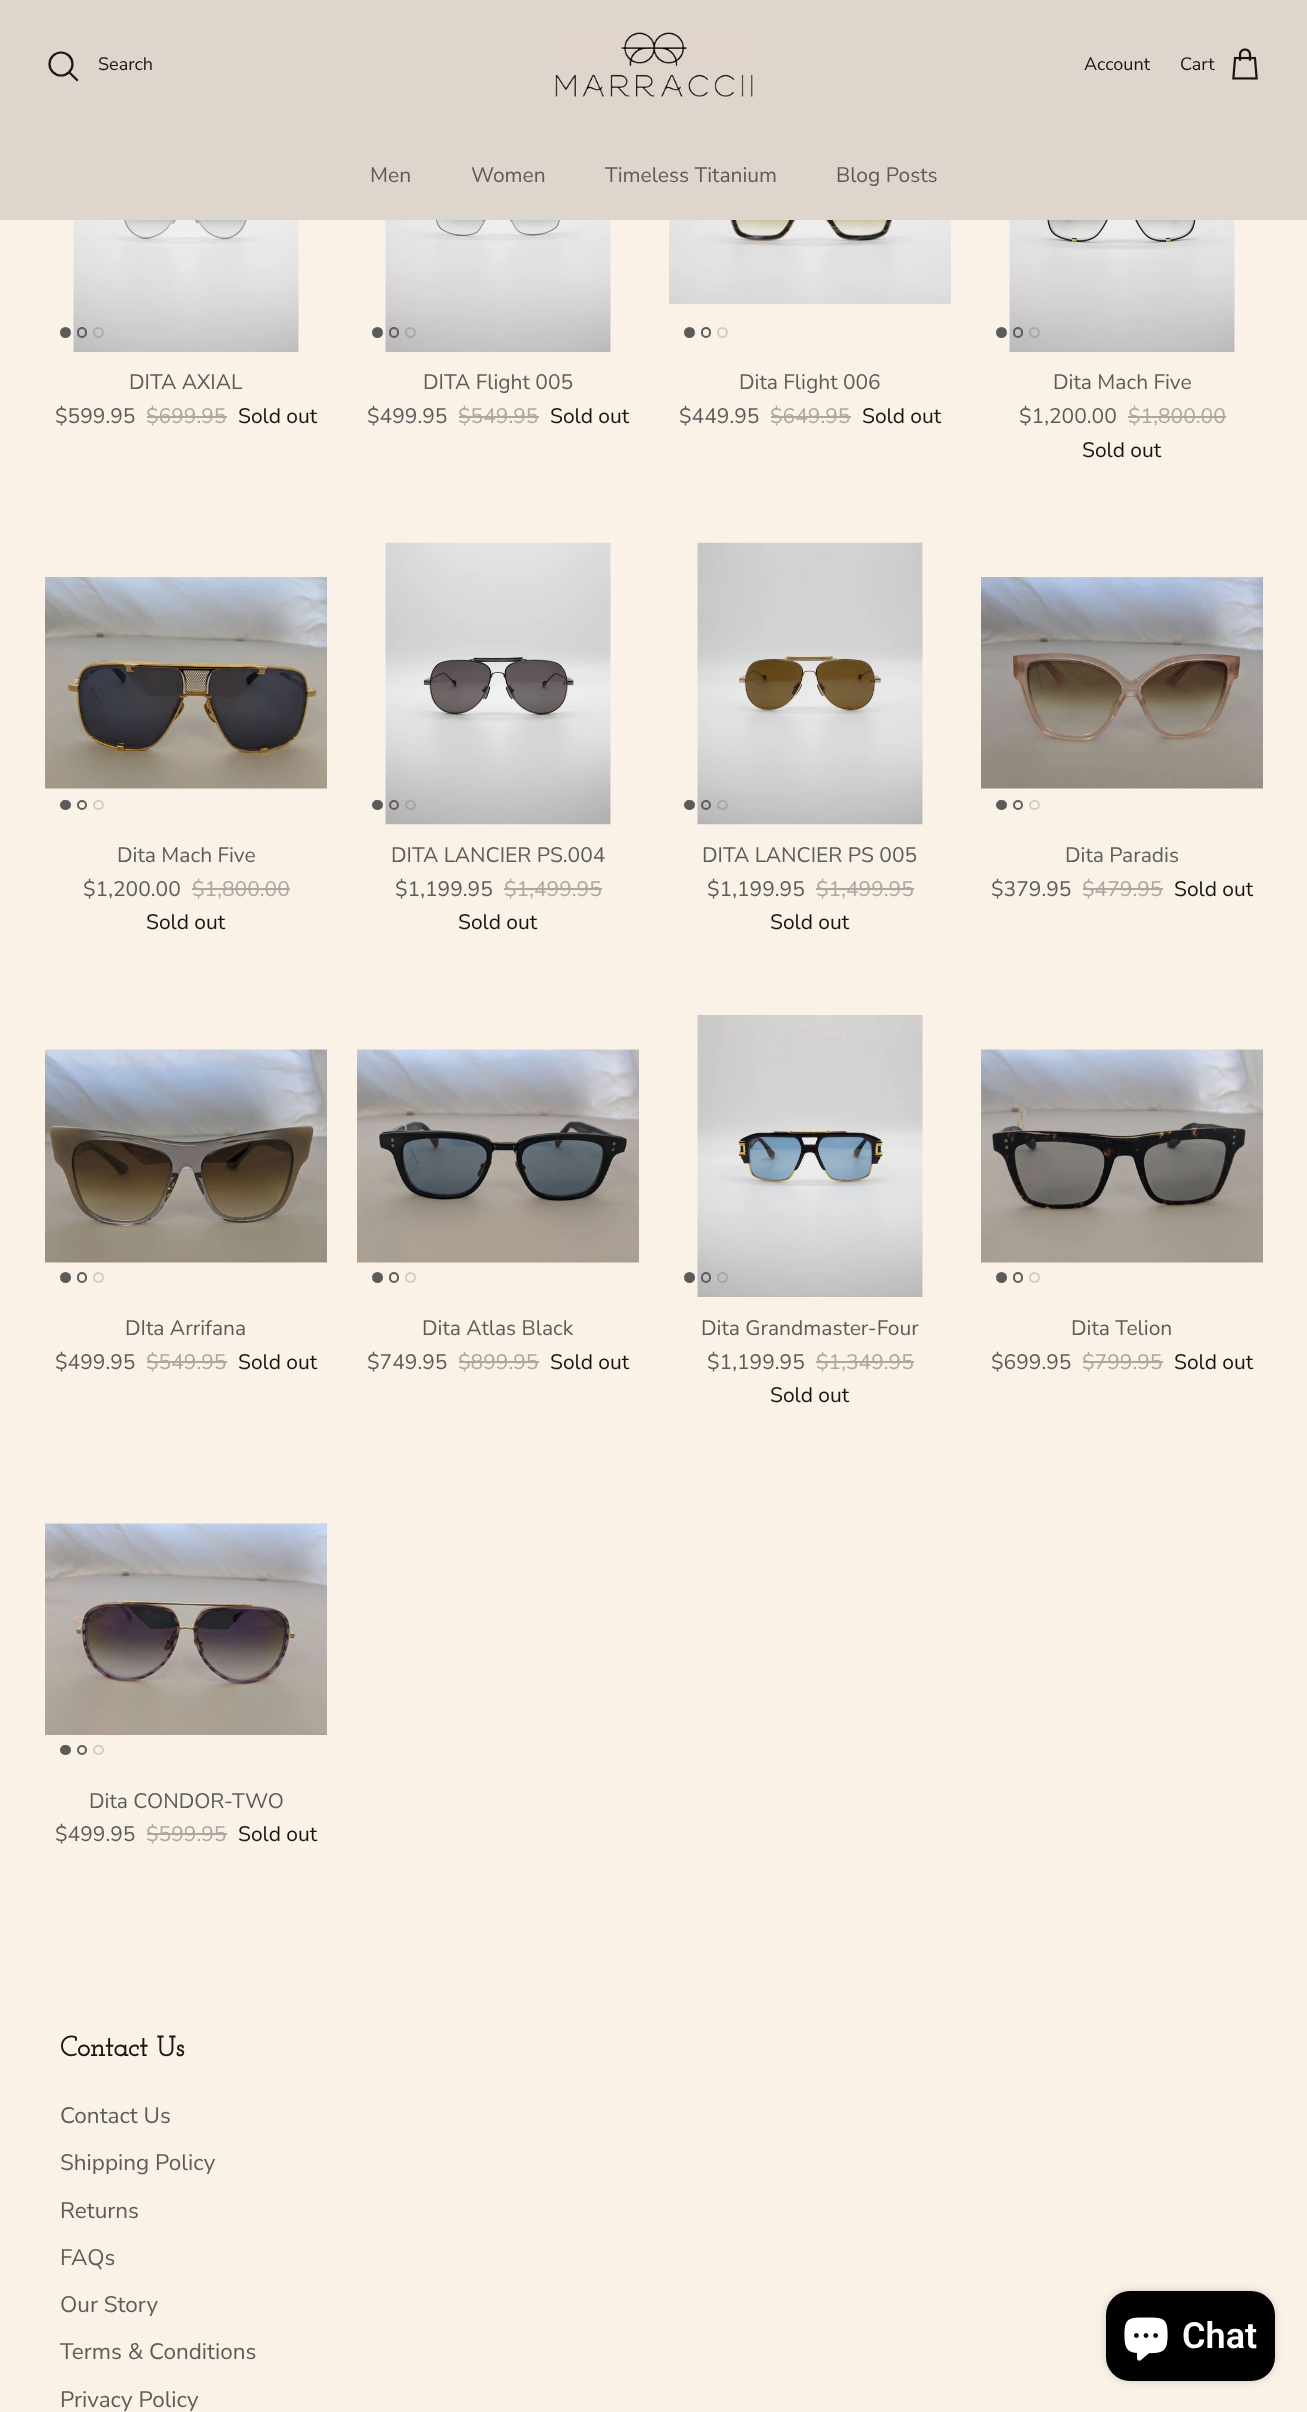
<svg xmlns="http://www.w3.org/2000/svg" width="1307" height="2412">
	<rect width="100%" height="100%" fill="#FAF2E6" />
	<rect x="0" y="0" width="1307" height="220" fill="#DED6CC" />
	<circle cx="61" cy="64" r="11.5" fill="none" stroke="#171717" stroke-width="2.2" />
	<text x="98" y="70" font-family="Nunito Sans" font-size="18" fill="#171717">Search</text>
	<path d="M70.5 73.5L77 80" fill="none" stroke="#171717" stroke-width="2.2" stroke-linecap="square" />
	<image x="555" y="32" width="199" height="67" href="assets/img1.png" />
	<g font-family="Nunito Sans" font-size="18" fill="#171717">
		<text x="1084" y="70">Account</text>
		<text x="1180" y="70">Cart</text>
	</g>
	<image x="1232" y="48" width="26" height="32" href="assets/img2.png" />
	<g font-family="Nunito Sans" font-size="21" fill="#5C5C5C">
		<text x="370" y="182">Men</text>
		<text x="471" y="182">Women</text>
		<text x="605" y="182">Timeless Titanium</text>
		<text x="836" y="182">Blog Posts</text>
	</g>
	<image x="73" y="220" width="226" height="132" href="assets/img3.png" />
	<circle cx="65.5" cy="332.5" r="4.5" fill="#5C5C5C" stroke="#5C5C5C" stroke-width="2" />
	<rect x="78" y="328" width="8" height="9" rx="4" fill="none" stroke="#5C5C5C" stroke-width="2" />
	<circle cx="98.5" cy="332.5" r="4.5" fill="none" stroke="#5C5C5C" stroke-opacity="0.25" stroke-width="2" />
	<g font-family="Nunito Sans" font-size="21" fill="#5C5C5C">
		<text x="129" y="389">DITA AXIAL</text>
		<text x="55" y="423">$599.95</text>
	</g>
	<text x="146" y="423" font-family="Nunito Sans" font-size="21" fill="#ABA7A1">$699.95</text>
	<rect x="147" y="416" width="80" height="2" fill="#ABA7A1" />
	<text x="238" y="423" font-family="Nunito Sans" font-size="21" fill="#171717">Sold out</text>
	<image x="385" y="220" width="226" height="132" href="assets/img4.png" />
	<circle cx="377.5" cy="332.5" r="4.5" fill="#5C5C5C" stroke="#5C5C5C" stroke-width="2" />
	<rect x="390" y="328" width="8" height="9" rx="4" fill="none" stroke="#5C5C5C" stroke-width="2" />
	<circle cx="410.5" cy="332.5" r="4.5" fill="none" stroke="#5C5C5C" stroke-opacity="0.25" stroke-width="2" />
	<g font-family="Nunito Sans" font-size="21" fill="#5C5C5C">
		<text x="423" y="389">DITA Flight 005</text>
		<text x="367" y="423">$499.95</text>
	</g>
	<text x="458" y="423" font-family="Nunito Sans" font-size="21" fill="#ABA7A1">$549.95</text>
	<rect x="459" y="416" width="80" height="2" fill="#ABA7A1" />
	<text x="550" y="423" font-family="Nunito Sans" font-size="21" fill="#171717">Sold out</text>
	<image x="669" y="220" width="282" height="84" href="assets/img5.png" />
	<circle cx="689.5" cy="332.5" r="4.5" fill="#5C5C5C" stroke="#5C5C5C" stroke-width="2" />
	<rect x="702" y="328" width="8" height="9" rx="4" fill="none" stroke="#5C5C5C" stroke-width="2" />
	<circle cx="722.5" cy="332.5" r="4.5" fill="none" stroke="#D3CDC4" stroke-width="2" />
	<g font-family="Nunito Sans" font-size="21" fill="#5C5C5C">
		<text x="739" y="389">Dita Flight 006</text>
		<text x="679" y="423">$449.95</text>
	</g>
	<text x="770" y="423" font-family="Nunito Sans" font-size="21" fill="#ABA7A1">$649.95</text>
	<rect x="771" y="416" width="80" height="2" fill="#ABA7A1" />
	<text x="862" y="423" font-family="Nunito Sans" font-size="21" fill="#171717">Sold out</text>
	<image x="1009" y="220" width="226" height="132" href="assets/img6.png" />
	<circle cx="1001.5" cy="332.5" r="4.5" fill="#5C5C5C" stroke="#5C5C5C" stroke-width="2" />
	<rect x="1014" y="328" width="8" height="9" rx="4" fill="none" stroke="#5C5C5C" stroke-width="2" />
	<circle cx="1034.5" cy="332.5" r="4.5" fill="none" stroke="#5C5C5C" stroke-opacity="0.25" stroke-width="2" />
	<g font-family="Nunito Sans" font-size="21" fill="#5C5C5C">
		<text x="1053" y="389">Dita Mach Five</text>
		<text x="1019" y="423">$1,200.00</text>
	</g>
	<text x="1128" y="423" font-family="Nunito Sans" font-size="21" fill="#ABA7A1">$1,800.00</text>
	<rect x="1128" y="416" width="98" height="2" fill="#ABA7A1" />
	<text x="1082" y="457" font-family="Nunito Sans" font-size="21" fill="#171717">Sold out</text>
	<image x="45" y="577" width="282" height="212" href="assets/img7.png" />
	<rect x="61" y="801" width="9" height="8" rx="4" fill="#5C5C5C" stroke="#5C5C5C" stroke-width="2" />
	<circle cx="82" cy="805" r="4" fill="none" stroke="#5C5C5C" stroke-width="2" />
	<rect x="94" y="801" width="9" height="8" rx="4" fill="none" stroke="#D3CDC4" stroke-width="2" />
	<g font-family="Nunito Sans" font-size="21" fill="#5C5C5C">
		<text x="117" y="862">Dita Mach Five</text>
		<text x="83" y="896">$1,200.00</text>
	</g>
	<text x="192" y="896" font-family="Nunito Sans" font-size="21" fill="#ABA7A1">$1,800.00</text>
	<rect x="192" y="888" width="98" height="2" fill="#ABA7A1" />
	<text x="146" y="929" font-family="Nunito Sans" font-size="21" fill="#171717">Sold out</text>
	<image x="385" y="542" width="226" height="283" href="assets/img8.png" />
	<rect x="373" y="801" width="9" height="8" rx="4" fill="#5C5C5C" stroke="#5C5C5C" stroke-width="2" />
	<circle cx="394" cy="805" r="4" fill="none" stroke="#5C5C5C" stroke-width="2" />
	<rect x="406" y="801" width="9" height="8" rx="4" fill="none" stroke="#5C5C5C" stroke-opacity="0.25" stroke-width="2" />
	<g font-family="Nunito Sans" font-size="21" fill="#5C5C5C">
		<text x="391" y="862">DITA LANCIER PS.004</text>
		<text x="395" y="896">$1,199.95</text>
	</g>
	<text x="504" y="896" font-family="Nunito Sans" font-size="21" fill="#ABA7A1">$1,499.95</text>
	<rect x="504" y="888" width="98" height="2" fill="#ABA7A1" />
	<text x="458" y="929" font-family="Nunito Sans" font-size="21" fill="#171717">Sold out</text>
	<image x="697" y="542" width="226" height="283" href="assets/img9.png" />
	<rect x="685" y="801" width="9" height="8" rx="4" fill="#5C5C5C" stroke="#5C5C5C" stroke-width="2" />
	<circle cx="706" cy="805" r="4" fill="none" stroke="#5C5C5C" stroke-width="2" />
	<rect x="718" y="801" width="9" height="8" rx="4" fill="none" stroke="#5C5C5C" stroke-opacity="0.25" stroke-width="2" />
	<g font-family="Nunito Sans" font-size="21" fill="#5C5C5C">
		<text x="702" y="862">DITA LANCIER PS 005</text>
		<text x="707" y="896">$1,199.95</text>
	</g>
	<text x="816" y="896" font-family="Nunito Sans" font-size="21" fill="#ABA7A1">$1,499.95</text>
	<rect x="816" y="888" width="98" height="2" fill="#ABA7A1" />
	<text x="770" y="929" font-family="Nunito Sans" font-size="21" fill="#171717">Sold out</text>
	<image x="981" y="577" width="282" height="212" href="assets/img10.png" />
	<rect x="997" y="801" width="9" height="8" rx="4" fill="#5C5C5C" stroke="#5C5C5C" stroke-width="2" />
	<circle cx="1018" cy="805" r="4" fill="none" stroke="#5C5C5C" stroke-width="2" />
	<rect x="1030" y="801" width="9" height="8" rx="4" fill="none" stroke="#D3CDC4" stroke-width="2" />
	<g font-family="Nunito Sans" font-size="21" fill="#5C5C5C">
		<text x="1065" y="862">Dita Paradis</text>
		<text x="991" y="896">$379.95</text>
	</g>
	<text x="1082" y="896" font-family="Nunito Sans" font-size="21" fill="#ABA7A1">$479.95</text>
	<rect x="1083" y="888" width="80" height="2" fill="#ABA7A1" />
	<text x="1174" y="896" font-family="Nunito Sans" font-size="21" fill="#171717">Sold out</text>
	<image x="45" y="1049" width="282" height="214" href="assets/img11.png" />
	<circle cx="65.5" cy="1277.5" r="4.5" fill="#5C5C5C" stroke="#5C5C5C" stroke-width="2" />
	<rect x="78" y="1273" width="8" height="9" rx="4" fill="none" stroke="#5C5C5C" stroke-width="2" />
	<circle cx="98.5" cy="1277.5" r="4.5" fill="none" stroke="#D3CDC4" stroke-width="2" />
	<g font-family="Nunito Sans" font-size="21" fill="#5C5C5C">
		<text x="125" y="1335">DIta Arrifana</text>
		<text x="55" y="1369">$499.95</text>
	</g>
	<text x="146" y="1369" font-family="Nunito Sans" font-size="21" fill="#ABA7A1">$549.95</text>
	<rect x="147" y="1361" width="80" height="2" fill="#ABA7A1" />
	<text x="238" y="1369" font-family="Nunito Sans" font-size="21" fill="#171717">Sold out</text>
	<image x="357" y="1049" width="282" height="214" href="assets/img12.png" />
	<circle cx="377.5" cy="1277.5" r="4.5" fill="#5C5C5C" stroke="#5C5C5C" stroke-width="2" />
	<rect x="390" y="1273" width="8" height="9" rx="4" fill="none" stroke="#5C5C5C" stroke-width="2" />
	<circle cx="410.5" cy="1277.5" r="4.5" fill="none" stroke="#D3CDC4" stroke-width="2" />
	<g font-family="Nunito Sans" font-size="21" fill="#5C5C5C">
		<text x="422" y="1335">Dita Atlas Black</text>
		<text x="367" y="1369">$749.95</text>
	</g>
	<text x="458" y="1369" font-family="Nunito Sans" font-size="21" fill="#ABA7A1">$899.95</text>
	<rect x="459" y="1361" width="80" height="2" fill="#ABA7A1" />
	<text x="550" y="1369" font-family="Nunito Sans" font-size="21" fill="#171717">Sold out</text>
	<image x="697" y="1015" width="226" height="282" href="assets/img13.png" />
	<circle cx="689.5" cy="1277.5" r="4.5" fill="#5C5C5C" stroke="#5C5C5C" stroke-width="2" />
	<rect x="702" y="1273" width="8" height="9" rx="4" fill="none" stroke="#5C5C5C" stroke-width="2" />
	<circle cx="722.5" cy="1277.5" r="4.5" fill="none" stroke="#5C5C5C" stroke-opacity="0.25" stroke-width="2" />
	<g font-family="Nunito Sans" font-size="21" fill="#5C5C5C">
		<text x="701" y="1335">Dita Grandmaster-Four</text>
		<text x="707" y="1369">$1,199.95</text>
	</g>
	<text x="816" y="1369" font-family="Nunito Sans" font-size="21" fill="#ABA7A1">$1,349.95</text>
	<rect x="816" y="1361" width="98" height="2" fill="#ABA7A1" />
	<text x="770" y="1402" font-family="Nunito Sans" font-size="21" fill="#171717">Sold out</text>
	<image x="981" y="1049" width="282" height="214" href="assets/img14.png" />
	<circle cx="1001.5" cy="1277.5" r="4.5" fill="#5C5C5C" stroke="#5C5C5C" stroke-width="2" />
	<rect x="1014" y="1273" width="8" height="9" rx="4" fill="none" stroke="#5C5C5C" stroke-width="2" />
	<circle cx="1034.5" cy="1277.5" r="4.5" fill="none" stroke="#D3CDC4" stroke-width="2" />
	<g font-family="Nunito Sans" font-size="21" fill="#5C5C5C">
		<text x="1071" y="1335">Dita Telion</text>
		<text x="991" y="1369">$699.95</text>
	</g>
	<text x="1082" y="1369" font-family="Nunito Sans" font-size="21" fill="#ABA7A1">$799.95</text>
	<rect x="1083" y="1361" width="80" height="2" fill="#ABA7A1" />
	<text x="1174" y="1369" font-family="Nunito Sans" font-size="21" fill="#171717">Sold out</text>
	<image x="45" y="1523" width="282" height="212" href="assets/img15.png" />
	<rect x="61" y="1746" width="9" height="8" rx="4" fill="#5C5C5C" stroke="#5C5C5C" stroke-width="2" />
	<circle cx="82" cy="1750" r="4" fill="none" stroke="#5C5C5C" stroke-width="2" />
	<rect x="94" y="1746" width="9" height="8" rx="4" fill="none" stroke="#D3CDC4" stroke-width="2" />
	<g font-family="Nunito Sans" font-size="21" fill="#5C5C5C">
		<text x="89" y="1808">Dita CONDOR-TWO</text>
		<text x="55" y="1841">$499.95</text>
	</g>
	<text x="146" y="1841" font-family="Nunito Sans" font-size="21" fill="#ABA7A1">$599.95</text>
	<rect x="147" y="1833" width="80" height="2" fill="#ABA7A1" />
	<text x="238" y="1841" font-family="Nunito Sans" font-size="21" fill="#171717">Sold out</text>
	<text x="60" y="2056" font-family="Josefin Slab" font-size="28" font-weight="700" fill="#171717">Contact Us</text>
	<g font-family="Nunito Sans" font-size="22.5" fill="#5C5C5C">
		<text x="60" y="2123">Contact Us</text>
		<text x="60" y="2170">Shipping Policy</text>
		<text x="60" y="2218">Returns</text>
		<text x="60" y="2265">FAQs</text>
		<text x="60" y="2312">Our Story</text>
		<text x="60" y="2359">Terms &amp; Conditions</text>
		<text x="60" y="2407">Privacy Policy</text>
	</g>
	<rect x="1106" y="2291" width="169" height="90" rx="24" fill="#000000" fill-opacity="0.15" filter="blur(4px)" />
	<rect x="1106" y="2291" width="169" height="90" rx="24" fill="#000000" />
	<image x="1124" y="2317" width="44" height="44" href="assets/img16.png" />
	<text x="1182" y="2348" font-family="Roboto" font-size="36" font-weight="600" fill="#FFFFFF">Chat</text>
</svg>
